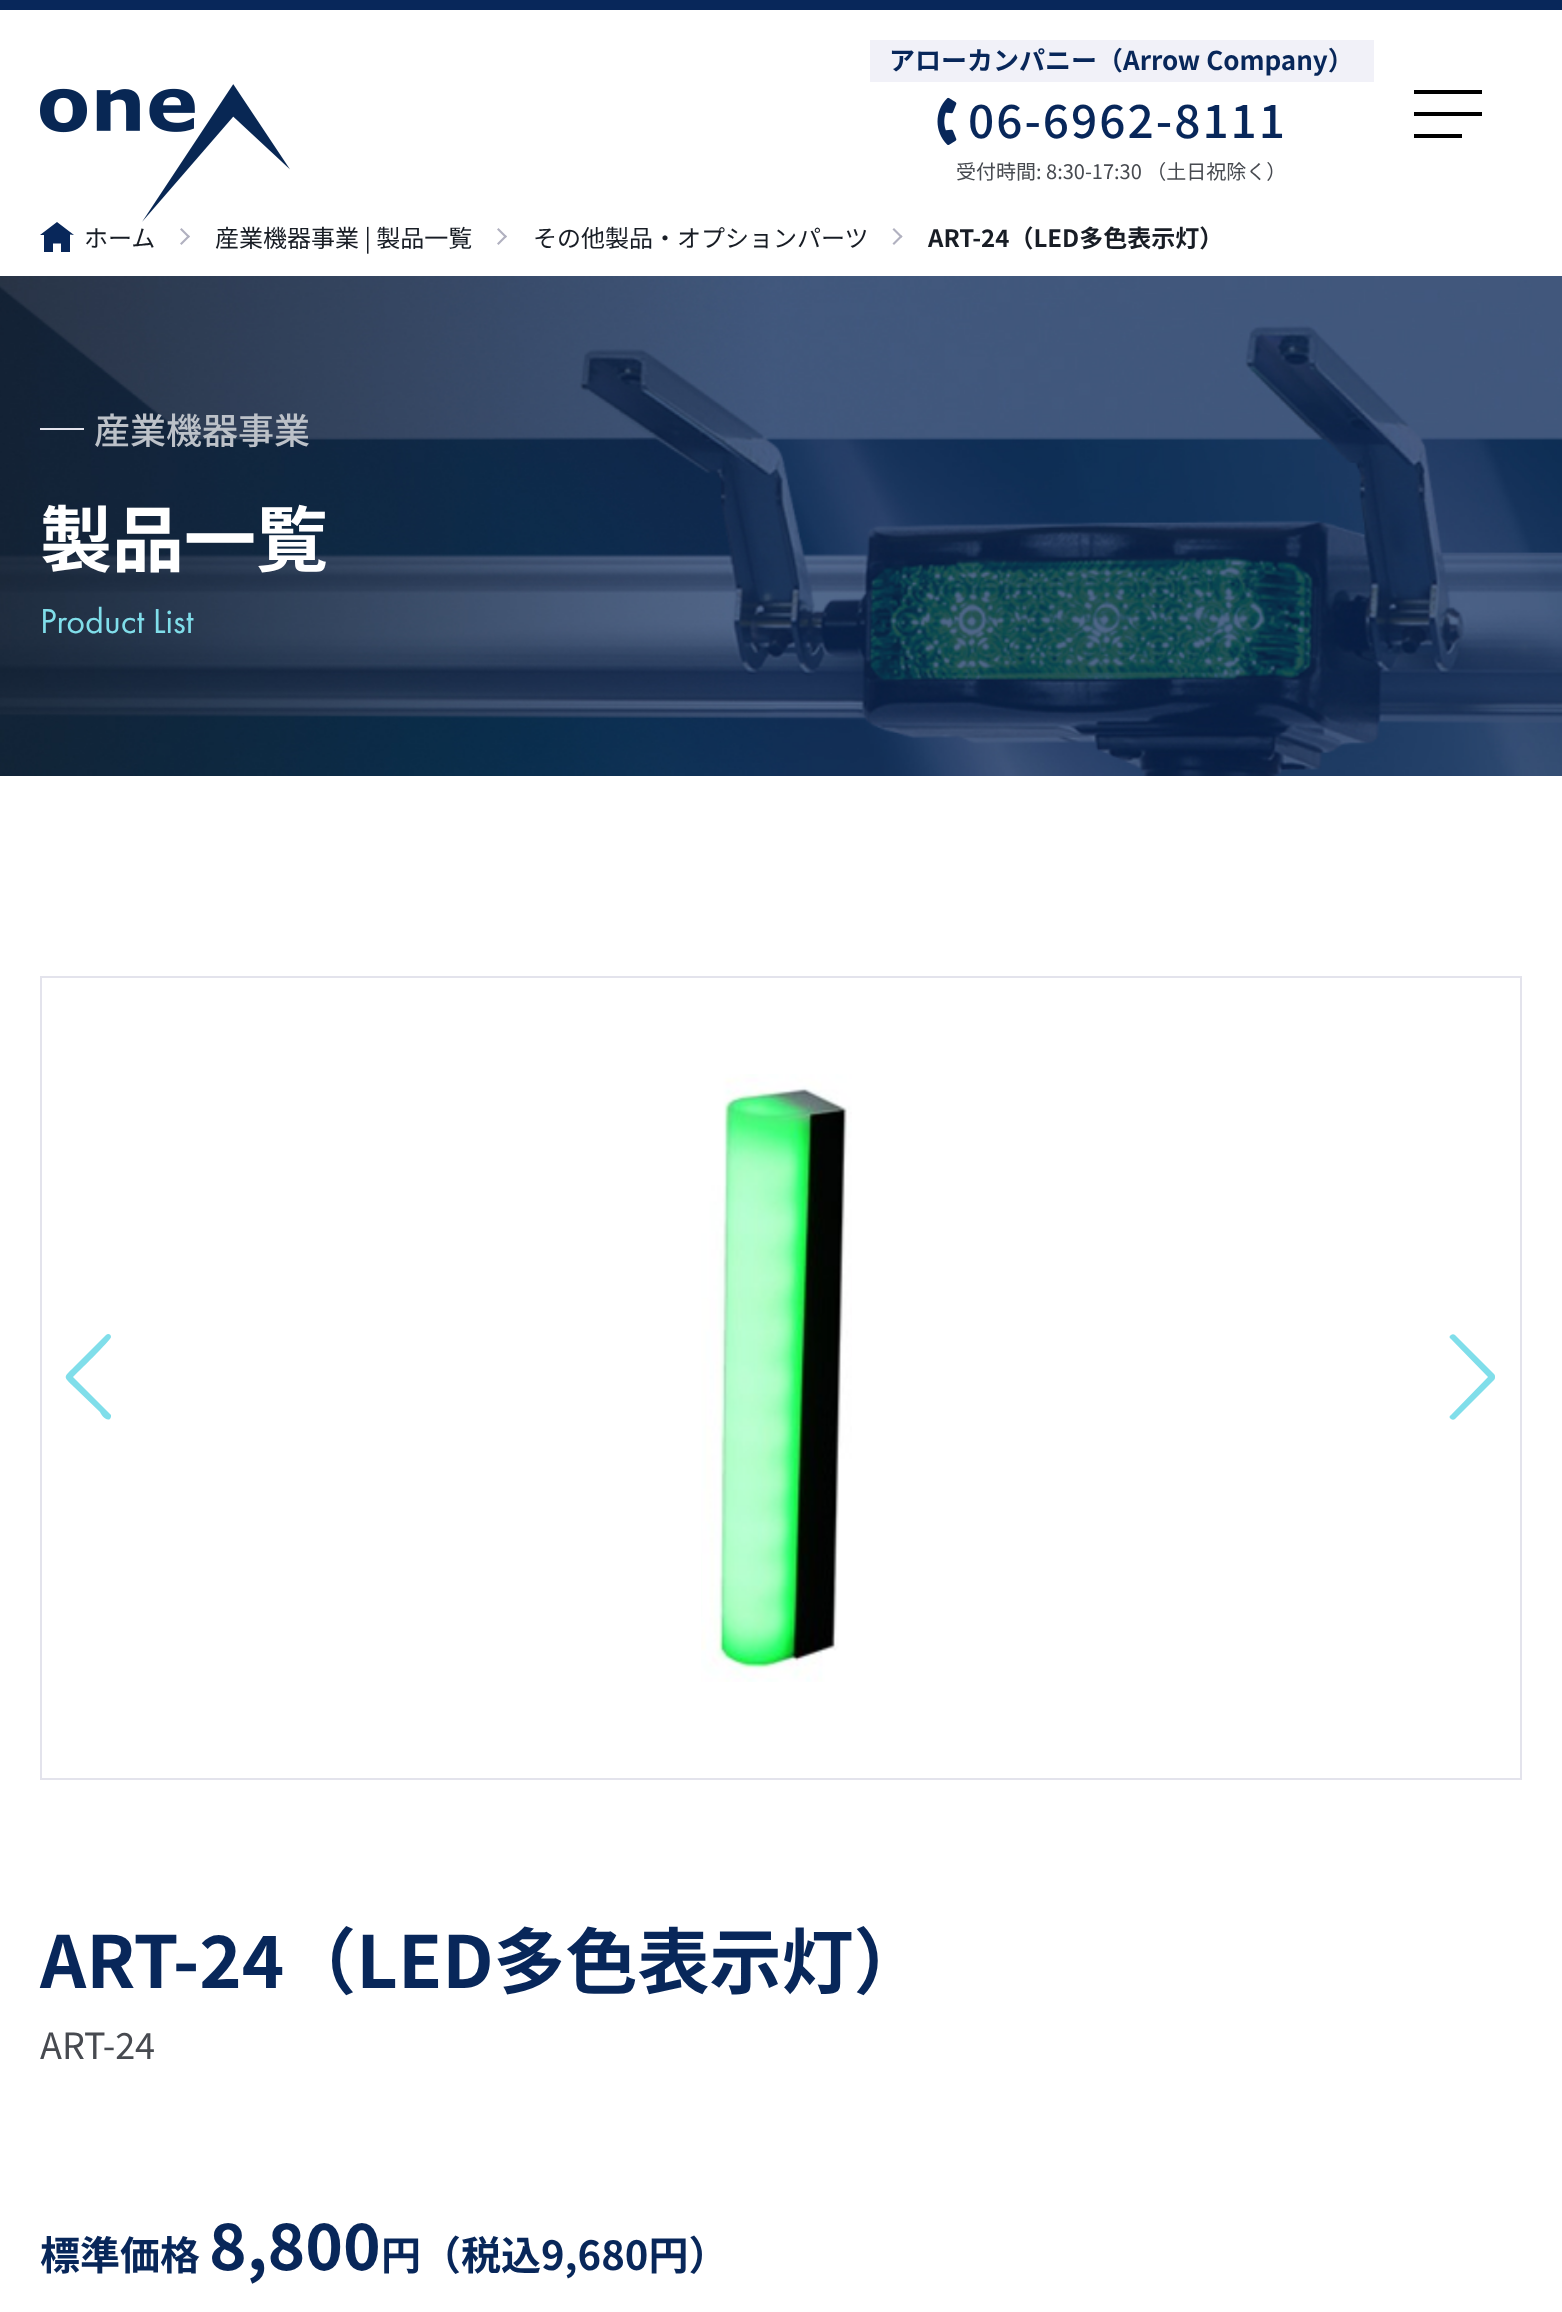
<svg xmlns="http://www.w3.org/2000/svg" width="1562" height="2312">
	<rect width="100%" height="100%" fill="#FFFFFF" />
	<rect x="0" y="0" width="1562" height="10" fill="#08275A" />
	<image x="40" y="84" width="250" height="138" href="assets/img1.png" />
	<rect x="870" y="40" width="504" height="42" fill="#F1F1F8" />
	<text x="889" y="70" font-family="Noto Sans JP" font-size="26" font-weight="700" fill="#08275A">アローカンパニー（Arrow Company）</text>
	<image x="937" y="97" width="20" height="48" href="assets/img2.png" />
	<text x="968" y="138" font-family="Noto Sans JP" font-size="46" font-weight="500" letter-spacing="2" fill="#08275A">06-6962-8111</text>
	<text x="956" y="179" font-family="Noto Sans JP" font-size="20" fill="#474A50">受付時間: 8:30-17:30 （土日祝除く）</text>
	<rect x="1414" y="90" width="68" height="4" fill="#000000" />
	<rect x="1414" y="112" width="68" height="4" fill="#000000" />
	<rect x="1414" y="134" width="48" height="4" fill="#000000" />
	<path d="M57 222L40 235H44V252H53V243.5H61V252H70V234.5L74 235Z" fill="#08275A" />
	<text x="84" y="247" font-family="Noto Sans JP" font-size="24" fill="#181D25">ホーム</text>
	<path d="M181.5 228L190 236.5L188.5 238L180 229.5Z" fill="#B1B1C0" />
	<path d="M188.5 235L190 236.5L181.5 245L180 243.5Z" fill="#B1B1C0" />
	<text x="215" y="247" font-family="Noto Sans JP" font-size="24" fill="#181D25">産業機器事業 | 製品一覧</text>
	<path d="M498.5 228L507 236.5L505.5 238L497 229.5Z" fill="#B1B1C0" />
	<path d="M505.5 235L507 236.5L498.5 245L497 243.5Z" fill="#B1B1C0" />
	<text x="533" y="247" font-family="Noto Sans JP" font-size="24" fill="#181D25">その他製品・オプションパーツ</text>
	<path d="M894 228L902.5 236.5L901 238L892.5 229.5Z" fill="#B1B1C0" />
	<path d="M901 235L902.5 236.5L894 245L892.5 243.5Z" fill="#B1B1C0" />
	<text x="928" y="247" font-family="Noto Sans JP" font-size="24" font-weight="700" fill="#181D25">ART-24（LED多色表示灯）</text>
	<image x="0" y="276" width="1562" height="500" href="assets/img3.png" />
	<rect x="40" y="428" width="44" height="2" fill="#E3E3EC" />
	<text x="94" y="444" font-family="Noto Sans JP" font-size="36" font-weight="500" fill="#BCC1C8">産業機器事業</text>
	<text x="40" y="566" font-family="Noto Sans JP" font-size="72" font-weight="700" fill="#FFFFFF">製品一覧</text>
	<text x="40" y="633" font-family="Futura PT" font-size="36" fill="#80DEEA">Product List</text>
	<rect x="41" y="977" width="1480" height="802" fill="none" stroke="#E3E3EC" stroke-width="2" />
	<path d="M106 1335C108 1333 111 1334 111 1337C111 1340 77 1373 73 1377L111 1415V1417L110 1419C106 1422 100 1413 100 1412L74 1387C63 1376 63 1378 74 1367Z" fill="#80DEEA" />
	<image x="701" y="1074" width="151" height="608" href="assets/img4.png" />
	<path d="M1451 1419C1449 1418 1449 1416 1451 1415L1488 1377L1451 1339C1449 1338 1449 1336 1451 1335C1452 1334 1454 1334 1455 1335L1494 1374C1495 1375 1495 1376 1495 1377C1495 1378 1495 1379 1494 1380L1455 1419C1454 1420 1452 1420 1451 1419Z" fill="#80DEEA" />
	<text x="40" y="1988" font-family="Noto Sans JP" font-size="72" font-weight="700" fill="#08275A">ART-24（LED多色表示灯）</text>
	<text x="40" y="2059" font-family="Noto Sans JP" font-size="36" fill="#474A50">ART-24</text>
	<text x="40" y="2270" font-family="Noto Sans JP" font-size="40" font-weight="700" fill="#08275A">標準価格</text>
	<text x="209" y="2270" font-family="Noto Sans JP" font-size="64" font-weight="700" fill="#08275A">8,800</text>
	<text x="381" y="2270" font-family="Noto Sans JP" font-size="40" font-weight="700" fill="#08275A">円（税込9,680円）</text>
</svg>
